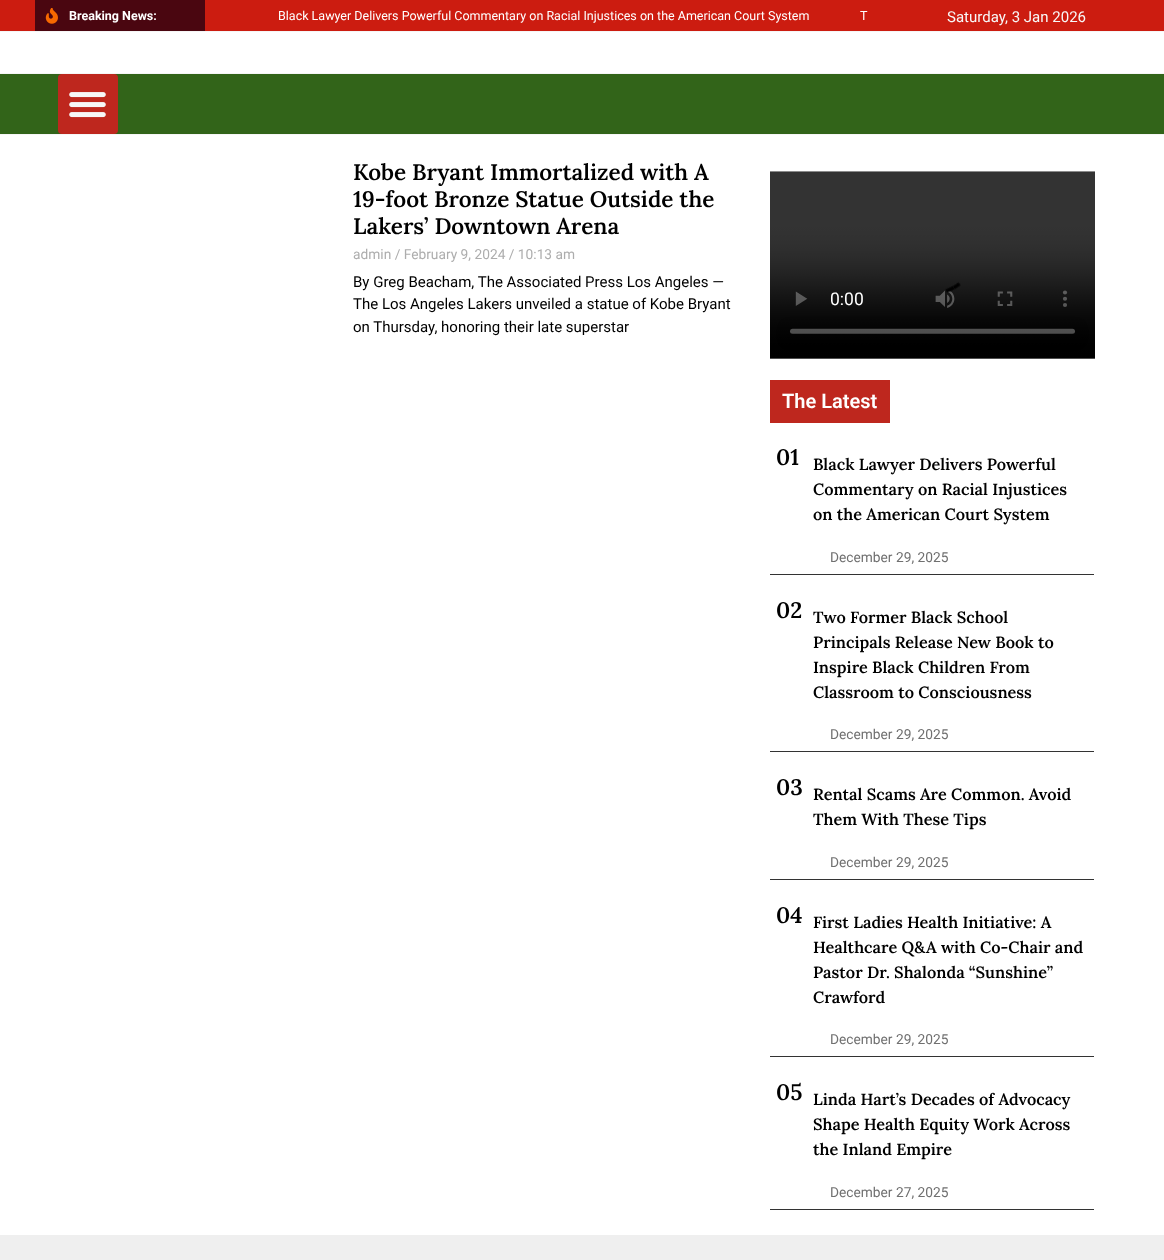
<svg xmlns="http://www.w3.org/2000/svg" width="1164" height="1260">
	<rect width="100%" height="100%" fill="#FFFFFF" />
	<rect x="0" y="0" width="1164" height="31" fill="#CC1C10" />
	<rect x="0" y="31" width="1164" height="1" fill="#F6F6F6" />
	<rect x="35" y="0" width="170" height="31" fill="#4A0610" />
	<image x="45" y="8" width="13" height="16" href="assets/img1.png" />
	<text x="69" y="20" font-family="Roboto" font-size="12.5" font-weight="700" fill="#FFFFFF">Breaking News:</text>
	<g font-family="Roboto" font-size="12.5" fill="#FFFFFF">
		<text x="278" y="20">Black Lawyer Delivers Powerful Commentary on Racial Injustices on the American Court System</text>
		<text x="860" y="20">T</text>
	</g>
	<text x="947" y="22" font-family="Roboto" font-size="15" fill="#F8F8F8">Saturday, 3 Jan 2026</text>
	<rect x="0" y="74" width="1164" height="60" fill="#326419" />
	<rect x="0" y="73" width="1164" height="1" fill="#F6F6F6" />
	<rect x="0" y="134" width="1164" height="1" fill="#F6F6F6" />
	<rect x="58" y="74" width="60" height="60" rx="4" fill="#BE271E" />
	<image x="69" y="92" width="37" height="26" href="assets/img2.png" />
	<g font-family="Lora" font-size="22.5" font-weight="600" fill="#000000">
		<text x="353" y="180">Kobe Bryant Immortalized with A</text>
		<text x="353" y="207">19-foot Bronze Statue Outside the</text>
		<text x="353" y="234">Lakers’ Downtown Arena</text>
	</g>
	<text x="353" y="259" font-family="Roboto" font-size="13.75" fill="#ADADAD">admin / February 9, 2024 / 10:13 am</text>
	<g font-family="Roboto" font-size="15" fill="#000000">
		<text x="353" y="287">By Greg Beacham, The Associated Press Los Angeles —</text>
		<text x="353" y="309">The Los Angeles Lakers unveiled a statue of Kobe Bryant</text>
		<text x="353" y="332">on Thursday, honoring their late superstar</text>
	</g>
	<image x="770" y="171" width="325" height="188" href="assets/img3.png" />
	<rect x="770" y="380" width="120" height="43" fill="#BE271E" />
	<text x="782" y="408" font-family="Roboto" font-size="20" font-weight="600" fill="#FFFFFF">The Latest</text>
	<rect x="770" y="574" width="324" height="1" fill="#333333" />
	<text x="776" y="465" font-family="Lora" font-size="22.5" font-weight="600" fill="#000000">01</text>
	<g font-family="Lora" font-size="16.25" font-weight="600" fill="#000000">
		<text x="813" y="470">Black Lawyer Delivers Powerful</text>
		<text x="813" y="495">Commentary on Racial Injustices</text>
		<text x="813" y="520">on the American Court System</text>
	</g>
	<text x="830" y="562" font-family="Roboto" font-size="13.75" fill="#707070">December 29, 2025</text>
	<rect x="770" y="751" width="324" height="1" fill="#333333" />
	<text x="776" y="618" font-family="Lora" font-size="22.5" font-weight="600" fill="#000000">02</text>
	<g font-family="Lora" font-size="16.25" font-weight="600" fill="#000000">
		<text x="813" y="623">Two Former Black School</text>
		<text x="813" y="648">Principals Release New Book to</text>
		<text x="813" y="673">Inspire Black Children From</text>
		<text x="813" y="698">Classroom to Consciousness</text>
	</g>
	<text x="830" y="739" font-family="Roboto" font-size="13.75" fill="#707070">December 29, 2025</text>
	<rect x="770" y="879" width="324" height="1" fill="#333333" />
	<text x="776" y="795" font-family="Lora" font-size="22.5" font-weight="600" fill="#000000">03</text>
	<g font-family="Lora" font-size="16.25" font-weight="600" fill="#000000">
		<text x="813" y="800">Rental Scams Are Common. Avoid</text>
		<text x="813" y="825">Them With These Tips</text>
	</g>
	<text x="830" y="867" font-family="Roboto" font-size="13.75" fill="#707070">December 29, 2025</text>
	<rect x="770" y="1056" width="324" height="1" fill="#333333" />
	<text x="776" y="923" font-family="Lora" font-size="22.5" font-weight="600" fill="#000000">04</text>
	<g font-family="Lora" font-size="16.25" font-weight="600" fill="#000000">
		<text x="813" y="928">First Ladies Health Initiative: A</text>
		<text x="813" y="953">Healthcare Q&amp;A with Co-Chair and</text>
		<text x="813" y="978">Pastor Dr. Shalonda “Sunshine”</text>
		<text x="813" y="1003">Crawford</text>
	</g>
	<text x="830" y="1044" font-family="Roboto" font-size="13.75" fill="#707070">December 29, 2025</text>
	<rect x="770" y="1209" width="324" height="1" fill="#333333" />
	<text x="776" y="1100" font-family="Lora" font-size="22.5" font-weight="600" fill="#000000">05</text>
	<g font-family="Lora" font-size="16.25" font-weight="600" fill="#000000">
		<text x="813" y="1105">Linda Hart’s Decades of Advocacy</text>
		<text x="813" y="1130">Shape Health Equity Work Across</text>
		<text x="813" y="1155">the Inland Empire</text>
	</g>
	<text x="830" y="1197" font-family="Roboto" font-size="13.75" fill="#707070">December 27, 2025</text>
	<rect x="0" y="1235" width="1164" height="25" fill="#EFEFEF" />
</svg>
